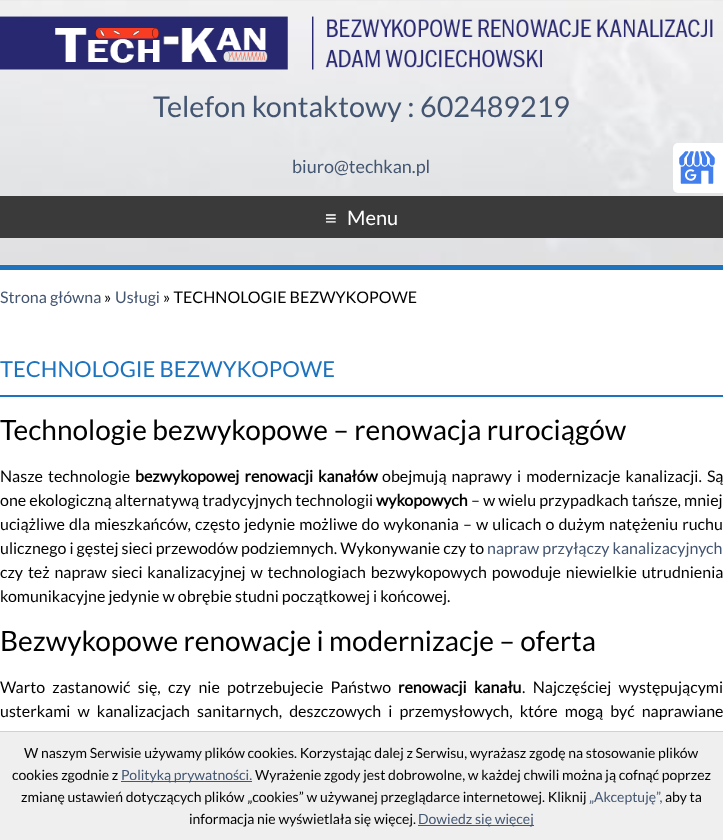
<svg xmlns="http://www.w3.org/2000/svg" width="723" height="840">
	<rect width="100%" height="100%" fill="#FFFFFF" />
	<image x="0" y="0" width="723" height="265" href="assets/img1.png" />
	<rect x="0" y="265" width="723" height="5" fill="#1E73BE" />
	<image x="0" y="16" width="713" height="54" href="assets/img2.png" />
	<text x="153" y="117" font-family="Lato" font-size="28.75" fill="#435570">Telefon kontaktowy : 602489219</text>
	<text x="292" y="173" font-family="Lato" font-size="18" fill="#435570">biuro@techkan.pl</text>
	<rect x="0" y="196" width="723" height="42" fill="#3A3A3A" />
	<text x="325" y="225" font-family="Liberation Sans" font-size="20" fill="#FFFFFF">≡</text>
	<text x="347" y="225" font-family="Lato" font-size="20" fill="#FFFFFF">Menu</text>
	<text x="0" y="303" font-family="Lato" font-size="16" fill="#435570">Strona główna</text>
	<text x="104" y="303" font-family="Lato" font-size="16" fill="#000000">»</text>
	<text x="115" y="303" font-family="Lato" font-size="16" fill="#435570">Usługi</text>
	<text x="163" y="303" font-family="Lato" font-size="16" fill="#000000">» TECHNOLOGIE BEZWYKOPOWE</text>
	<rect x="0" y="395" width="723" height="2" fill="#1E73BE" />
	<text x="0" y="377" font-family="Lato" font-size="22" fill="#1E73BE">TECHNOLOGIE BEZWYKOPOWE</text>
	<text x="0" y="440" font-family="Lato" font-size="28" fill="#000000">Technologie bezwykopowe – renowacja rurociągów</text>
	<text x="0" y="482" word-spacing="2" font-family="Lato" font-size="16" fill="#000000">Nasze technologie</text>
	<g font-family="Lato" font-size="16" font-weight="700" fill="#000000">
		<text x="135" y="482" word-spacing="2">bezwykopowej renowacji</text>
		<text x="318" y="482">kanałów</text>
	</g>
	<g font-family="Lato" font-size="16" fill="#000000">
		<text x="382" y="482" word-spacing="2">obejmują naprawy i modernizacje kanalizacji. Są</text>
		<text x="0" y="506">one ekologiczną alternatywą tradycyjnych technologii</text>
	</g>
	<text x="376" y="506" font-family="Lato" font-size="16" font-weight="700" fill="#000000">wykopowych</text>
	<g font-family="Lato" font-size="16" fill="#000000">
		<text x="471" y="506">– w wielu przypadkach tańsze, mniej</text>
		<text x="0" y="530" word-spacing="1">uciążliwe dla mieszkańców, często jedynie możliwe do wykonania – w ulicach o dużym natężeniu ruchu</text>
		<text x="0" y="554">ulicznego i gęstej sieci przewodów podziemnych. Wykonywanie czy to</text>
	</g>
	<text x="487" y="554" font-family="Lato" font-size="16" fill="#435570">napraw przyłączy kanalizacyjnych</text>
	<g font-family="Lato" font-size="16" fill="#000000">
		<text x="0" y="578" word-spacing="1.75">czy też napraw sieci kanalizacyjnej w technologiach bezwykopowych powoduje niewielkie utrudnienia</text>
		<text x="0" y="602">komunikacyjne jedynie w obrębie studni początkowej i końcowej.</text>
	</g>
	<text x="0" y="651" font-family="Lato" font-size="28" fill="#000000">Bezwykopowe renowacje i modernizacje – oferta</text>
	<text x="0" y="693" word-spacing="4.25" font-family="Lato" font-size="16" fill="#000000">Warto zastanowić się, czy nie potrzebujecie Państwo</text>
	<text x="398" y="693" word-spacing="4.25" font-family="Lato" font-size="16" font-weight="700" fill="#000000">renowacji kanału</text>
	<g font-family="Lato" font-size="16" fill="#000000">
		<text x="522" y="693" word-spacing="4.25">. Najczęściej występującymi</text>
		<text x="0" y="717" word-spacing="4">usterkami w kanalizacjach sanitarnych, deszczowych i przemysłowych, które mogą być naprawiane</text>
	</g>
	<rect x="673" y="143" width="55" height="50" rx="5" fill="#FFFFFF" />
	<image x="679" y="151" width="36" height="33" href="assets/img3.png" />
	<rect x="0" y="732" width="723" height="108" fill="#EFEFEF" />
	<rect x="0" y="731" width="723" height="1" fill="#D3D0D0" />
	<g font-family="Lato" font-size="14" fill="#000000">
		<text x="24" y="758">W naszym Serwisie używamy plików cookies. Korzystając dalej z Serwisu, wyrażasz zgodę na stosowanie plików</text>
		<text x="12" y="780">cookies zgodnie z</text>
	</g>
	<rect x="121" y="781" width="131" height="1" fill="#435570" />
	<text x="121" y="780" font-family="Lato" font-size="14" fill="#435570">Polityką prywatności.</text>
	<g font-family="Lato" font-size="14" fill="#000000">
		<text x="255" y="780">Wyrażenie zgody jest dobrowolne, w każdej chwili można ją cofnąć poprzez</text>
		<text x="21" y="802">zmianę ustawień dotyczących plików „cookies” w używanej przeglądarce internetowej. Kliknij</text>
	</g>
	<text x="589" y="802" font-family="Lato" font-size="14" fill="#435570">„Akceptuję”,</text>
	<g font-family="Lato" font-size="14" fill="#000000">
		<text x="665" y="802">aby ta</text>
		<text x="189" y="824">informacja nie wyświetlała się więcej.</text>
	</g>
	<rect x="418" y="825" width="116" height="1" fill="#435570" />
	<text x="418" y="824" font-family="Lato" font-size="14" fill="#435570">Dowiedz się więcej</text>
</svg>
